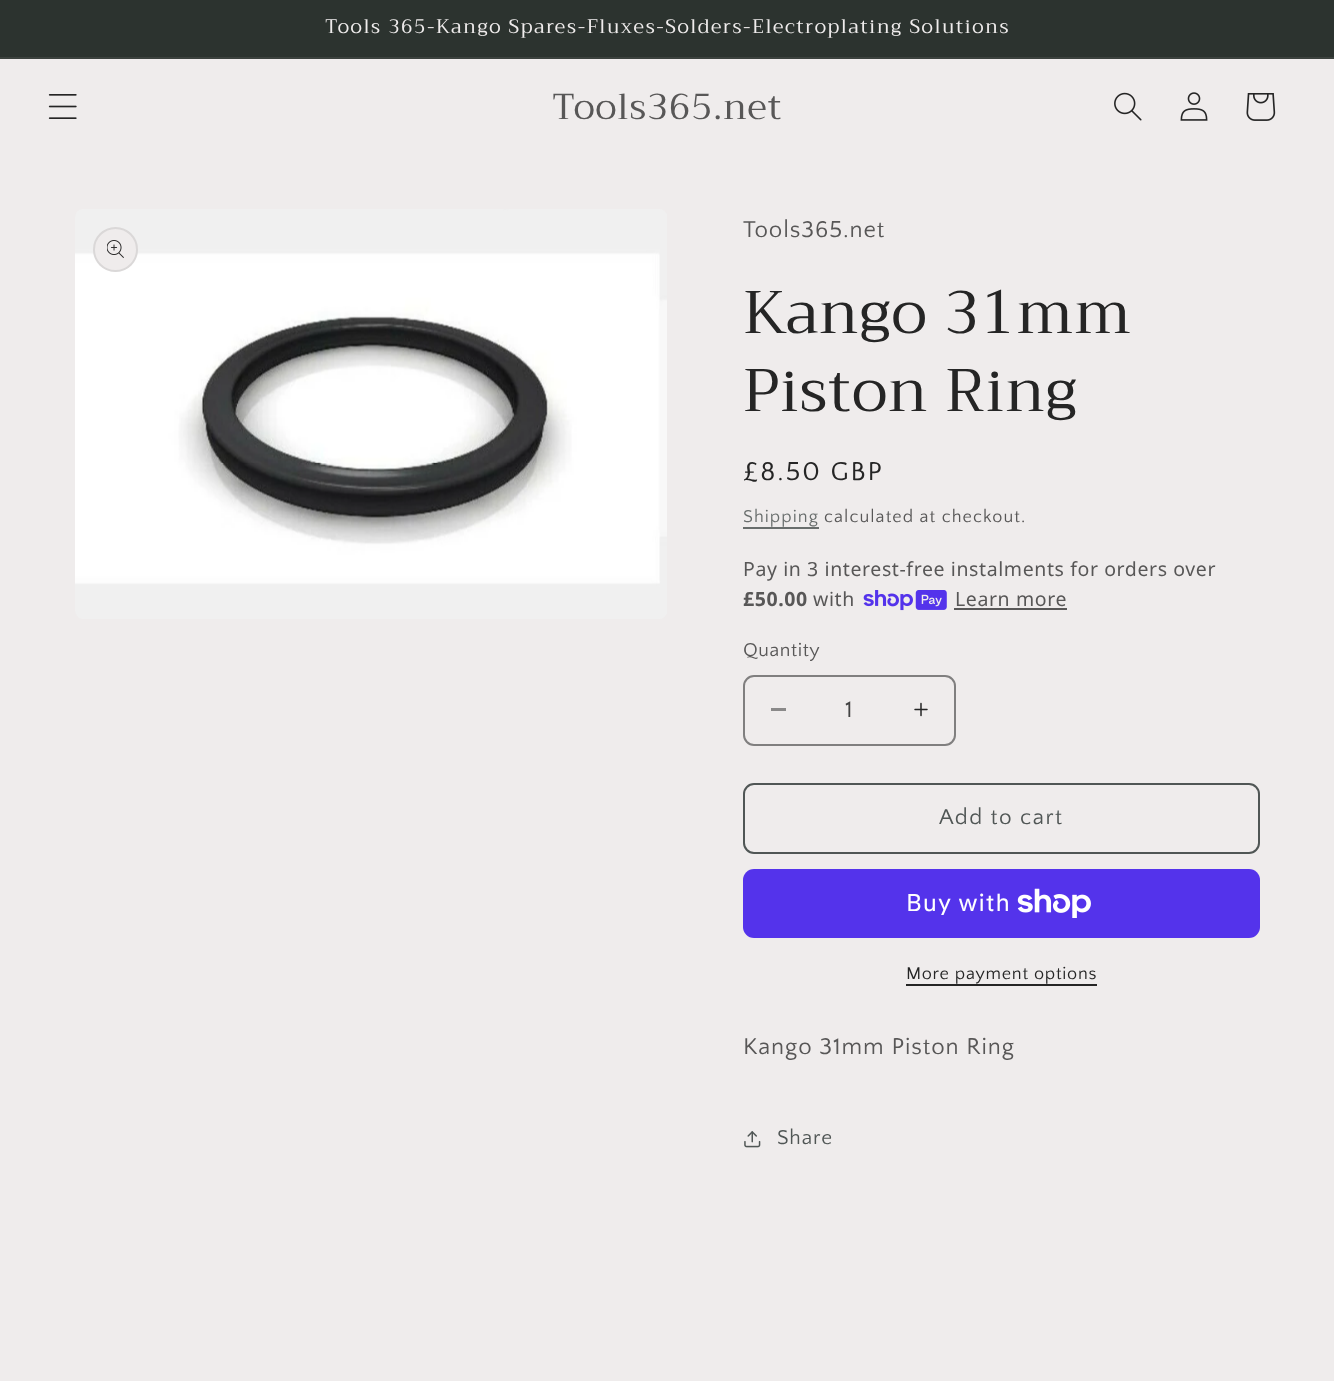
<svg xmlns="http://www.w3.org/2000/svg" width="1334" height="1381">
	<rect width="100%" height="100%" fill="#EFECEC" />
	<rect x="0" y="0" width="1334" height="57" fill="#2C332F" />
	<rect x="0" y="57" width="1334" height="2" fill="#3C423E" />
	<text x="325" y="33" font-family="Trirong" font-size="19.5" letter-spacing="1.5" fill="#EFECEC">Tools 365-Kango Spares-Fluxes-Solders-Electroplating Solutions</text>
	<image x="48" y="94" width="29" height="25" href="assets/img1.png" />
	<text x="552" y="119" font-family="Trirong" font-size="36" letter-spacing="0.9" fill="#585757">Tools365.net</text>
	<image x="1114" y="92" width="28" height="29" href="assets/img2.png" />
	<image x="1180" y="92" width="28" height="29" href="assets/img3.png" />
	<image x="1246" y="93" width="30" height="28" href="assets/img4.png" />
	<image x="75" y="209" width="592" height="410" href="assets/img5.png" />
	<circle cx="115.5" cy="249.5" r="22.5" fill="#EFECEC" />
	<circle cx="115.5" cy="249.5" r="21.5" fill="none" stroke="#252525" stroke-opacity="0.1" stroke-width="2" />
	<image x="107" y="240" width="17" height="18" href="assets/img6.png" />
	<text x="743" y="237" font-family="Quattrocento Sans" font-size="24" letter-spacing="0.9" fill="#585757">Tools365.net</text>
	<g font-family="Trirong" font-size="60" letter-spacing="0.9" fill="#252525">
		<text x="743" y="333">Kango 31mm</text>
		<text x="743" y="411">Piston Ring</text>
	</g>
	<text x="743" y="480" font-family="Quattrocento Sans" font-size="27" letter-spacing="2" fill="#252525">£8.50 GBP</text>
	<text x="743" y="522" font-family="Quattrocento Sans" font-size="18" letter-spacing="1.05" fill="#686D6C">Shipping</text>
	<rect x="743" y="527" width="76" height="2" fill="#686D6C" />
	<text x="824" y="522" font-family="Quattrocento Sans" font-size="18" letter-spacing="1.05" fill="#585757">calculated at checkout.</text>
	<text x="743" y="576" font-family="Noto Sans" font-size="19.5" letter-spacing="0.6" fill="#585757">Pay in 3 interest-free instalments for orders over</text>
	<text x="743" y="606" font-family="Noto Sans" font-size="19.5" font-weight="700" letter-spacing="0.6" fill="#585757">£50.00</text>
	<text x="813" y="606" font-family="Noto Sans" font-size="19.5" letter-spacing="0.6" fill="#585757">with</text>
	<image x="863" y="590" width="84" height="21" href="assets/img7.png" />
	<text x="955" y="606" font-family="Noto Sans" font-size="19.5" letter-spacing="0.6" fill="#585757">Learn more</text>
	<rect x="954" y="608" width="113" height="2" fill="#585757" />
	<text x="743" y="656" font-family="Quattrocento Sans" font-size="19.5" letter-spacing="0.6" fill="#585757">Quantity</text>
	<rect x="771" y="708" width="15" height="3" fill="#8A8989" />
	<image x="914" y="702" width="14" height="15" href="assets/img8.png" />
	<rect x="744" y="676" width="211" height="69" rx="10" fill="none" stroke="#807F7F" stroke-width="2" />
	<text x="845" y="717" font-family="Quattrocento Sans" font-size="24" fill="#434343">1</text>
	<rect x="744" y="784" width="515" height="69" rx="10" fill="none" stroke="#505655" stroke-width="2" />
	<text x="939" y="824" font-family="Quattrocento Sans" font-size="22.5" letter-spacing="1.5" fill="#505655">Add to cart</text>
	<rect x="743" y="869" width="517" height="69" rx="11" fill="#5433EB" />
	<text x="906" y="911" font-family="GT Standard" font-size="24" letter-spacing="0.9" fill="#FFFFFF">Buy with</text>
	<image x="1017" y="888" width="74" height="30" href="assets/img9.png" />
	<text x="906" y="979" font-family="Quattrocento Sans" font-size="18" letter-spacing="0.75" fill="#252525">More payment options</text>
	<rect x="906" y="984" width="191" height="2" fill="#252525" />
	<text x="743" y="1054" font-family="Quattrocento Sans" font-size="24" letter-spacing="0.9" fill="#585757">Kango 31mm Piston Ring</text>
	<image x="744" y="1131" width="17" height="17" href="assets/img10.png" />
	<text x="777" y="1144" font-family="Quattrocento Sans" font-size="21" letter-spacing="0.9" fill="#505655">Share</text>
</svg>
